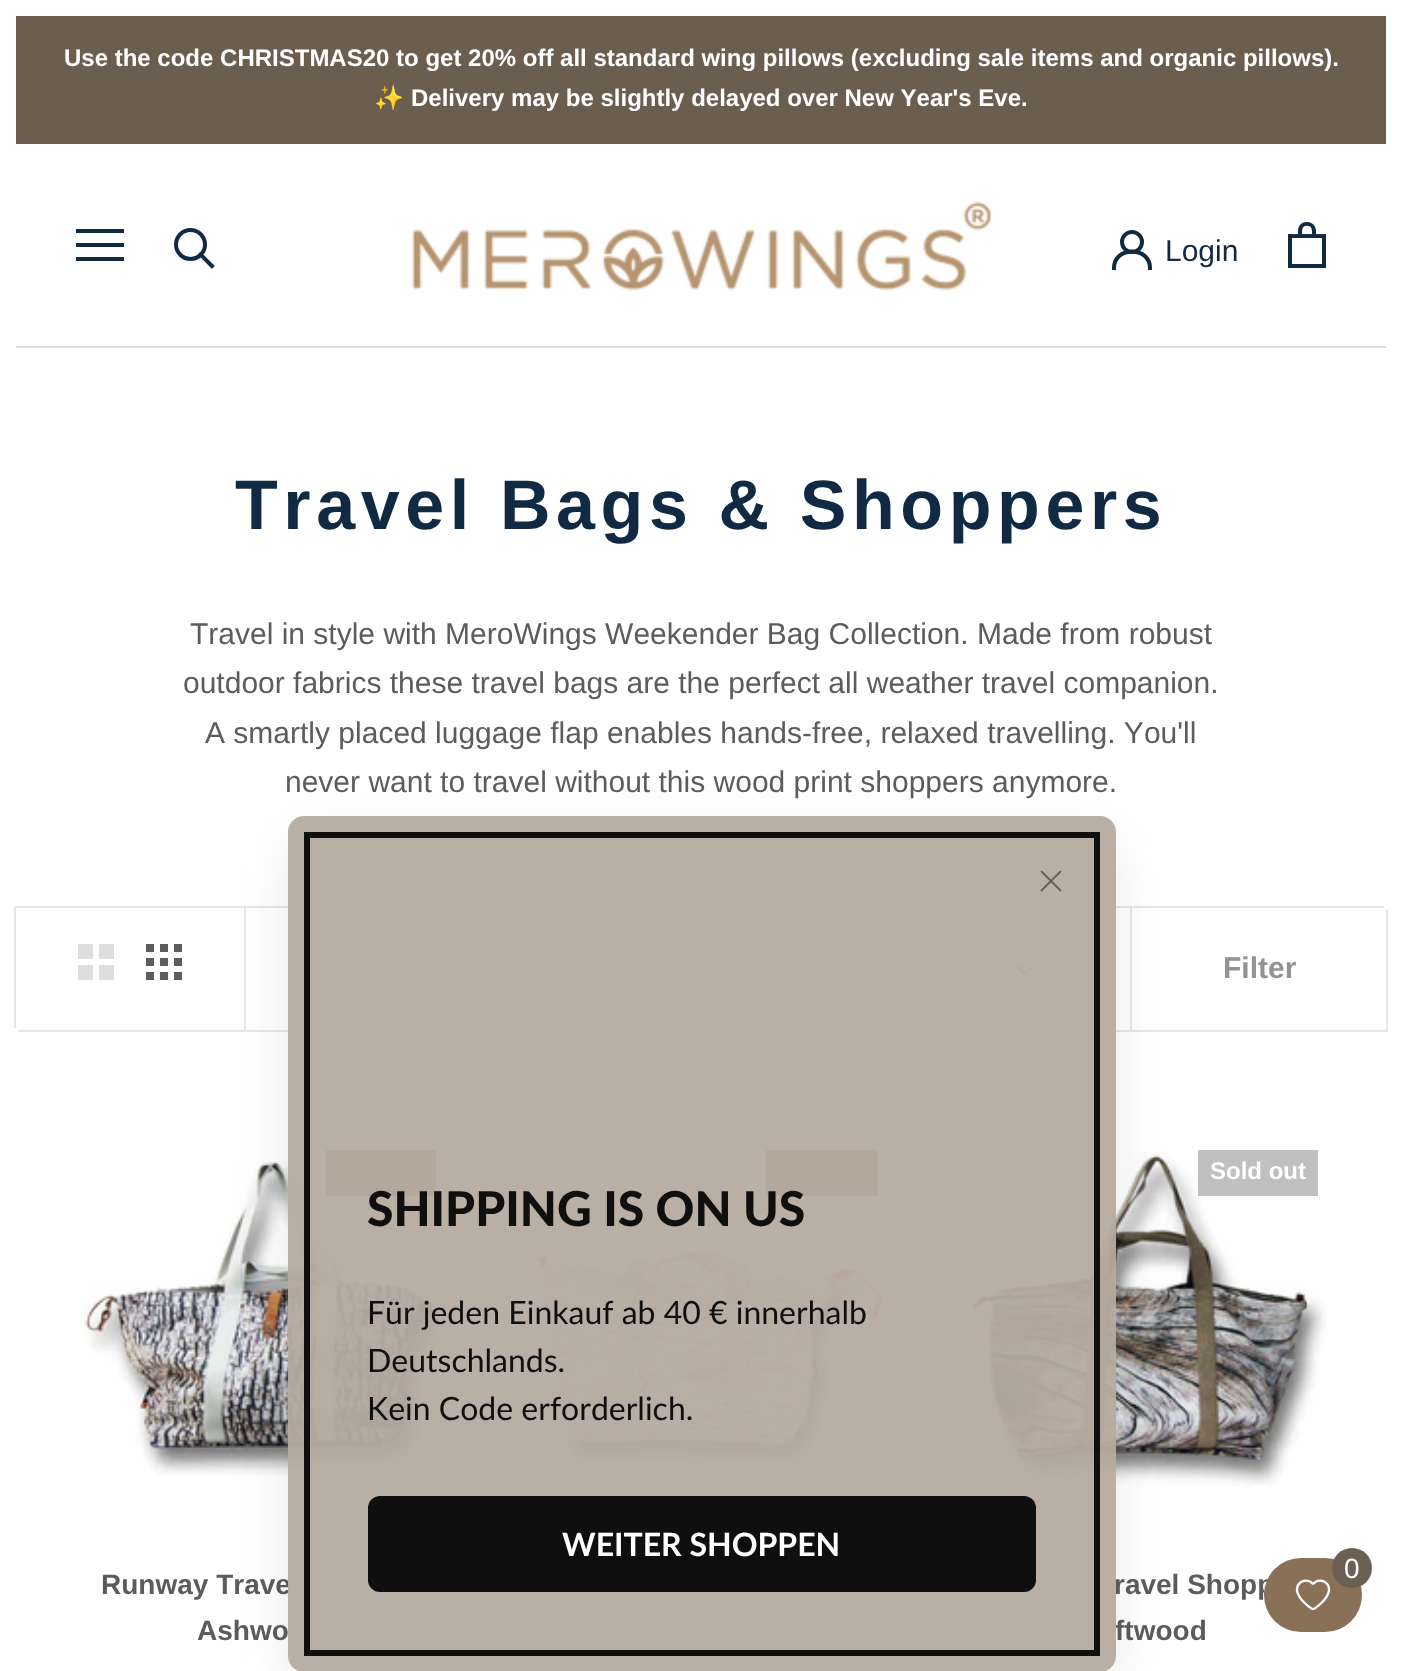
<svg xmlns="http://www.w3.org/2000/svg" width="1401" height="1671">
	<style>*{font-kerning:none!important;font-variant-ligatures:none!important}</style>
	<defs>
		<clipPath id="clip1"><path d="M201 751H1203V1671H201ZM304 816H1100C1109 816 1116 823 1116 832V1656C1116 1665 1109 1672 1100 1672H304C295 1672 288 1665 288 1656V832C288 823 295 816 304 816Z" clip-rule="evenodd" /></clipPath>
	</defs>
	<rect width="100%" height="100%" fill="#FFFFFF" />
	<rect x="16" y="16" width="1370" height="128" fill="#6B5E4F" />
	<text x="64" y="66" font-family="Liberation Sans" font-size="24" font-weight="700" fill="#FFFFFF">Use the code CHRISTMAS20 to get 20% off all standard wing pillows (excluding sale items and organic pillows).</text>
	<text x="374" y="106" font-family="Noto Color Emoji" font-size="24" font-weight="700" fill="#FFFFFF">✨</text>
	<text x="411" y="106" font-family="Liberation Sans" font-size="24" font-weight="700" fill="#FFFFFF">Delivery may be slightly delayed over New Year's Eve.</text>
	<rect x="16" y="346" width="1370" height="2" fill="#DBDFE3" />
	<path d="M76 261V257H124V261ZM76 243H124V247H76ZM76 229H124V233H76Z" fill="#102A43" />
	<path d="M212 266L200.5 254.5" fill="none" stroke="#102A43" stroke-width="4" stroke-linecap="square" />
	<circle cx="190.5" cy="244.5" r="14.5" fill="none" stroke="#102A43" stroke-width="4" />
	<image x="411" y="201" width="582" height="90" href="assets/img1.png" />
	<path d="M1114 268C1114 246 1150 246 1150 268" fill="none" stroke="#102A43" stroke-width="4" stroke-linecap="square" />
	<circle cx="1132" cy="242" r="10" fill="none" stroke="#102A43" stroke-width="4" />
	<text x="1165" y="261" font-family="Liberation Sans" font-size="30" fill="#102A43">Login</text>
	<image x="1288" y="222" width="38" height="46" href="assets/img2.png" />
	<text x="235" y="529" font-family="Liberation Sans" font-size="70" font-weight="700" letter-spacing="5.6" fill="#102A43">Travel Bags &amp; Shoppers</text>
	<g font-family="Liberation Sans" font-size="30" fill="#5C5C5C">
		<text x="190" y="644">Travel in style with MeroWings Weekender Bag Collection. Made from robust</text>
		<text x="183" y="693">outdoor fabrics these travel bags are the perfect all weather travel companion.</text>
		<text x="205" y="743">A smartly placed luggage flap enables hands-free, relaxed travelling. You'll</text>
		<text x="285" y="792">never want to travel without this wood print shoppers anymore.</text>
	</g>
	<path d="M14 906V1028H16V908H1384V906Z" fill="#E7E7E7" />
	<path d="M18 1030V1032H1388V910H1386V1030Z" fill="#E7E7E7" />
	<rect x="244" y="908" width="2" height="122" fill="#E7E7E7" />
	<image x="78" y="944" width="36" height="36" href="assets/img3.png" />
	<image x="146" y="944" width="36" height="36" href="assets/img4.png" />
	<rect x="846" y="908" width="2" height="122" fill="#E7E7E7" />
	<path d="M1032.5 966L1025 974L1017.5 966" fill="none" stroke="#939393" stroke-width="2" stroke-linecap="square" />
	<rect x="1130" y="908" width="2" height="122" fill="#E7E7E7" />
	<text x="1223" y="978" font-family="Liberation Sans" font-size="30" font-weight="700" fill="#939393">Filter</text>
	<image x="83" y="1161" width="370" height="315" href="assets/img5.png" />
	<rect x="326" y="1150" width="110" height="46" fill="#8B745A" />
	<g font-family="Liberation Sans" font-size="28" font-weight="700" fill="#5C5C5C">
		<text x="101" y="1594">Runway Trave</text>
		<text x="197" y="1640">Ashwo</text>
	</g>
	<rect x="766" y="1150" width="112" height="46" fill="#8B745A" />
	<image x="531" y="1248" width="367" height="225" href="assets/img6.png" />
	<image x="971" y="1152" width="356" height="334" href="assets/img7.png" />
	<rect x="1198" y="1150" width="120" height="46" fill="#C0C0C0" />
	<text x="1210" y="1179" font-family="Liberation Sans" font-size="24" font-weight="700" fill="#FFFFFF">Sold out</text>
	<g font-family="Liberation Sans" font-size="28" font-weight="700" fill="#5C5C5C">
		<text x="1114" y="1594">ravel Shopp</text>
		<text x="1115" y="1640">ftwood</text>
	</g>
	<g clip-path="url(#clip1)">
		<rect x="298" y="848" width="808" height="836" rx="6" fill="#363D4D" fill-opacity="0.15" filter="blur(32px)" />
	</g>
	<rect x="288" y="816" width="828" height="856" rx="16" fill="#B6ABA0" fill-opacity="0.95" />
	<rect x="307" y="835" width="790" height="818" fill="none" stroke="#0F0F0F" stroke-width="6" />
	<path d="M1041.5 871.5L1060.5 890.5M1060.5 871.5L1041.5 890.5" fill="none" stroke="#645F5A" stroke-width="1.8" stroke-linecap="round" stroke-linejoin="round" />
	<text x="367" y="1226" font-family="Lato" font-size="48" font-weight="900" fill="#0F0F0F">SHIPPING IS ON US</text>
	<g font-family="Lato" font-size="32" fill="#0F0F0F">
		<text x="367" y="1324">Für jeden Einkauf ab 40 € innerhalb</text>
		<text x="367" y="1372">Deutschlands.</text>
		<text x="367" y="1420">Kein Code erforderlich.</text>
	</g>
	<rect x="368" y="1496" width="668" height="96" rx="12" fill="#0F0F0F" />
	<text x="562" y="1556" font-family="Lato" font-size="32" font-weight="700" fill="#FFFFFF">WEITER SHOPPEN</text>
	<rect x="1264" y="1558" width="98" height="74" rx="37" fill="#897157" />
	<circle cx="1352" cy="1568" r="20" fill="#6C6053" />
	<text x="1344" y="1578" font-family="Liberation Sans" font-size="28" fill="#FFFFFF">0</text>
	<image x="1295" y="1579" width="36" height="31" href="assets/img8.png" />
</svg>
